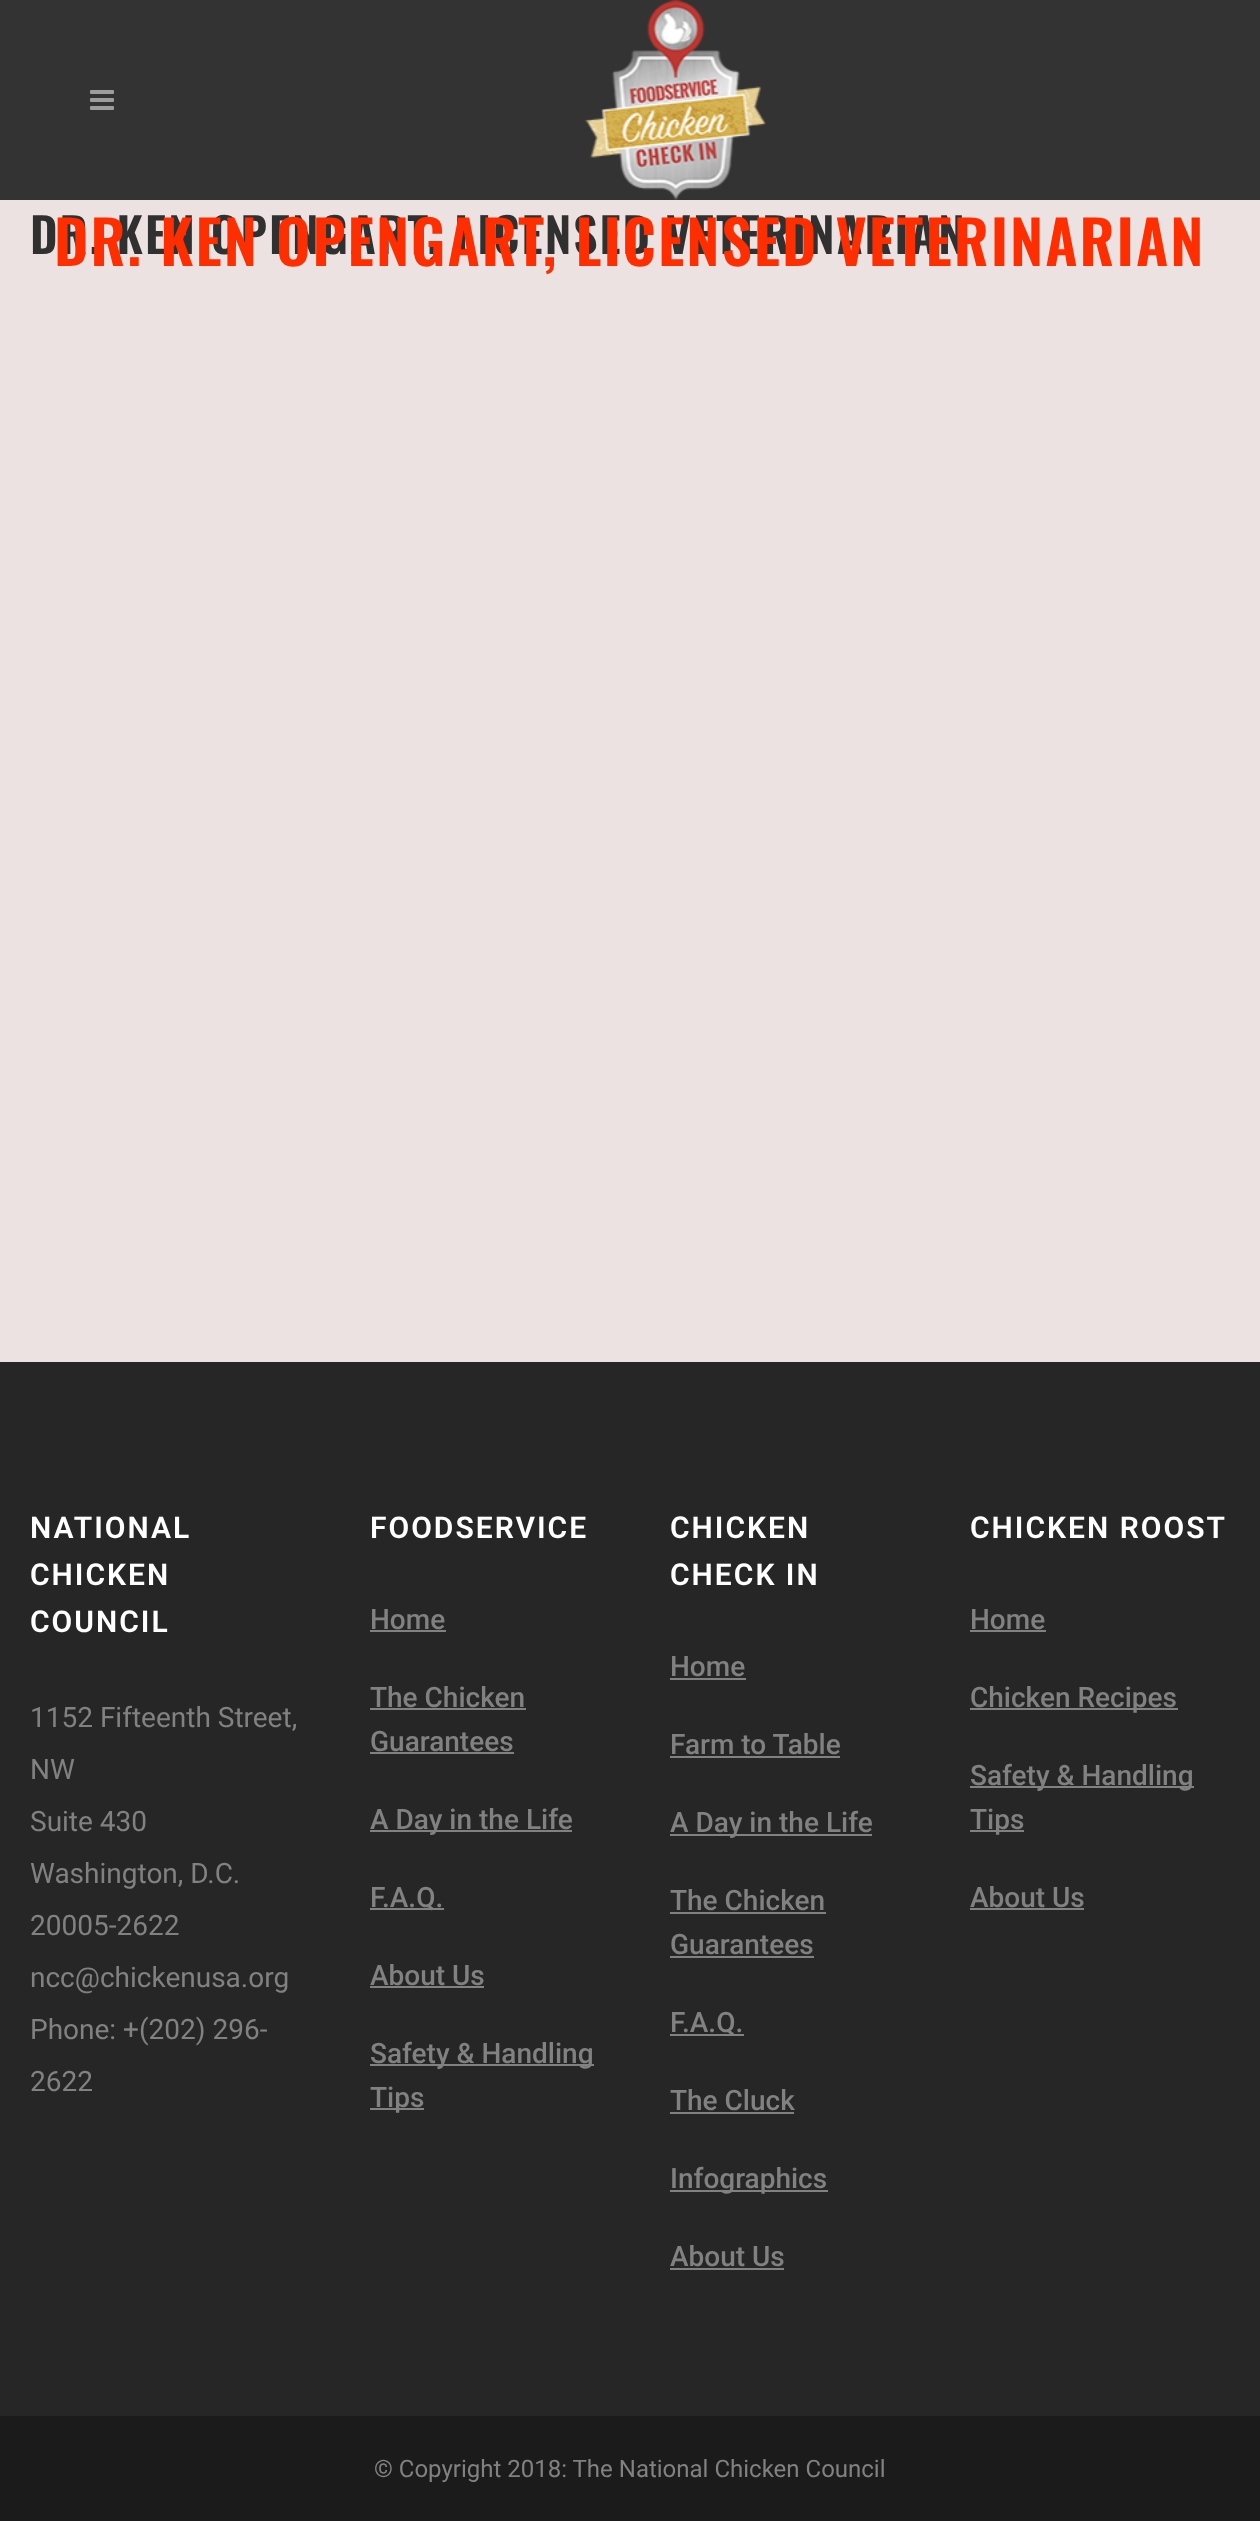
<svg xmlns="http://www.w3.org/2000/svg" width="1260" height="2521">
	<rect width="100%" height="100%" fill="#EDE2E2" />
	<rect x="0" y="0" width="1260" height="200" fill="#333333" />
	<image x="90" y="90" width="24" height="20" href="assets/img1.png" />
	<image x="584" y="0" width="182" height="200" href="assets/img2.png" />
	<text x="30" y="254" font-family="Oswald" font-size="48" font-weight="600" letter-spacing="2" fill="#303030">DR. KEN OPENGART, LICENSED VETERINARIAN</text>
	<text x="54" y="266" font-family="Oswald" font-size="60" font-weight="600" letter-spacing="2" fill="#FF2E00">DR. KEN OPENGART, LICENSED VETERINARIAN</text>
	<rect x="0" y="1362" width="1260" height="1054" fill="#262626" />
	<g font-family="Roboto" font-size="30" font-weight="600" letter-spacing="2" fill="#FFFFFF">
		<text x="30" y="1538">NATIONAL</text>
		<text x="30" y="1585">CHICKEN</text>
		<text x="30" y="1632">COUNCIL</text>
	</g>
	<g font-family="Roboto" font-size="28" fill="#818181">
		<text x="30" y="1727">1152 Fifteenth Street,</text>
		<text x="30" y="1779">NW</text>
		<text x="30" y="1831">Suite 430</text>
		<text x="30" y="1883">Washington, D.C.</text>
		<text x="30" y="1935">20005-2622</text>
		<text x="30" y="1987">ncc@chickenusa.org</text>
		<text x="30" y="2039">Phone: +(202) 296-</text>
		<text x="30" y="2091">2622</text>
	</g>
	<text x="370" y="1538" font-family="Roboto" font-size="30" font-weight="600" letter-spacing="2" fill="#FFFFFF">FOODSERVICE</text>
	<text x="370" y="1629" font-family="Roboto" font-size="28" font-weight="500" fill="#818181">Home</text>
	<rect x="370" y="1630" width="76" height="2" fill="#818181" />
	<text x="370" y="1707" font-family="Roboto" font-size="28" font-weight="500" fill="#818181">The Chicken</text>
	<rect x="370" y="1708" width="156" height="2" fill="#818181" />
	<text x="370" y="1751" font-family="Roboto" font-size="28" font-weight="500" fill="#818181">Guarantees</text>
	<rect x="370" y="1752" width="144" height="2" fill="#818181" />
	<rect x="370" y="1830" width="202" height="2" fill="#818181" />
	<text x="370" y="1829" font-family="Roboto" font-size="28" font-weight="500" fill="#818181">A Day in the Life</text>
	<rect x="370" y="1908" width="74" height="2" fill="#818181" />
	<g font-family="Roboto" font-size="28" font-weight="500" fill="#818181">
		<text x="370" y="1907">F.A.Q.</text>
		<text x="370" y="1985">About Us</text>
	</g>
	<rect x="370" y="1986" width="114" height="2" fill="#818181" />
	<rect x="370" y="2064" width="224" height="2" fill="#818181" />
	<text x="370" y="2063" font-family="Roboto" font-size="28" font-weight="500" fill="#818181">Safety &amp; Handling</text>
	<rect x="370" y="2108" width="54" height="2" fill="#818181" />
	<text x="370" y="2107" font-family="Roboto" font-size="28" font-weight="500" fill="#818181">Tips</text>
	<g font-family="Roboto" font-size="30" font-weight="600" letter-spacing="2" fill="#FFFFFF">
		<text x="670" y="1538">CHICKEN</text>
		<text x="670" y="1585">CHECK IN</text>
	</g>
	<text x="670" y="1676" font-family="Roboto" font-size="28" font-weight="500" fill="#818181">Home</text>
	<rect x="670" y="1678" width="76" height="2" fill="#818181" />
	<text x="670" y="1754" font-family="Roboto" font-size="28" font-weight="500" fill="#818181">Farm to Table</text>
	<rect x="670" y="1756" width="170" height="2" fill="#818181" />
	<rect x="670" y="1834" width="202" height="2" fill="#818181" />
	<g font-family="Roboto" font-size="28" font-weight="500" fill="#818181">
		<text x="670" y="1832">A Day in the Life</text>
		<text x="670" y="1910">The Chicken</text>
	</g>
	<rect x="670" y="1912" width="156" height="2" fill="#818181" />
	<text x="670" y="1954" font-family="Roboto" font-size="28" font-weight="500" fill="#818181">Guarantees</text>
	<rect x="670" y="1956" width="144" height="2" fill="#818181" />
	<rect x="670" y="2034" width="74" height="2" fill="#818181" />
	<g font-family="Roboto" font-size="28" font-weight="500" fill="#818181">
		<text x="670" y="2032">F.A.Q.</text>
		<text x="670" y="2110">The Cluck</text>
	</g>
	<rect x="670" y="2112" width="124" height="2" fill="#818181" />
	<rect x="670" y="2190" width="158" height="2" fill="#818181" />
	<g font-family="Roboto" font-size="28" font-weight="500" fill="#818181">
		<text x="670" y="2188">Infographics</text>
		<text x="670" y="2266">About Us</text>
	</g>
	<rect x="670" y="2268" width="114" height="2" fill="#818181" />
	<text x="970" y="1538" font-family="Roboto" font-size="30" font-weight="600" letter-spacing="2" fill="#FFFFFF">CHICKEN ROOST</text>
	<text x="970" y="1629" font-family="Roboto" font-size="28" font-weight="500" fill="#818181">Home</text>
	<rect x="970" y="1630" width="76" height="2" fill="#818181" />
	<rect x="970" y="1708" width="208" height="2" fill="#818181" />
	<text x="970" y="1707" font-family="Roboto" font-size="28" font-weight="500" fill="#818181">Chicken Recipes</text>
	<rect x="970" y="1786" width="224" height="2" fill="#818181" />
	<text x="970" y="1785" font-family="Roboto" font-size="28" font-weight="500" fill="#818181">Safety &amp; Handling</text>
	<rect x="970" y="1830" width="54" height="2" fill="#818181" />
	<g font-family="Roboto" font-size="28" font-weight="500" fill="#818181">
		<text x="970" y="1829">Tips</text>
		<text x="970" y="1907">About Us</text>
	</g>
	<rect x="970" y="1908" width="114" height="2" fill="#818181" />
	<rect x="0" y="2416" width="1260" height="105" fill="#1B1B1B" />
	<text x="374" y="2477" font-family="Roboto" font-size="24" fill="#818181">© Copyright 2018: The National Chicken Council</text>
</svg>
